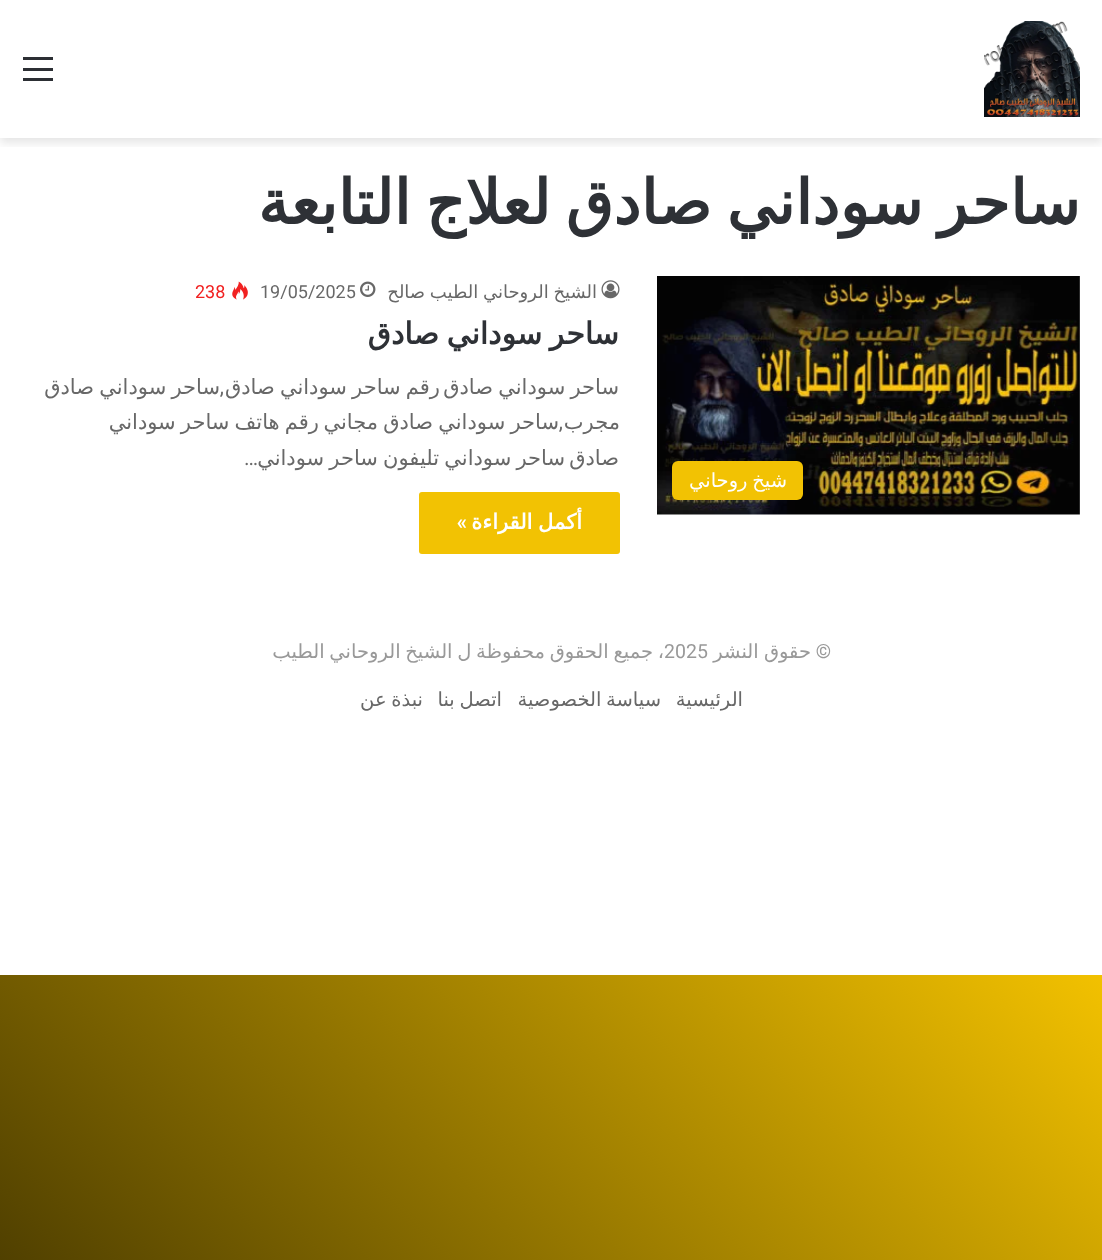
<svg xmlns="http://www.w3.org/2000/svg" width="1102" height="1260">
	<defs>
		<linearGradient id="g1" gradientUnits="userSpaceOnUse" x1="32" y1="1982" x2="1071" y2="943"><stop offset="0" stop-color="#000000" /><stop offset="1" stop-color="#F2C100" /></linearGradient>
		<clipPath id="clip1"><rect x="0" y="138" width="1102" height="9" /></clipPath>
	</defs>
	<rect width="100%" height="100%" fill="#FFFFFF" />
	<rect x="0" y="975" width="1102" height="285" fill="url(#g1)" />
	<g clip-path="url(#clip1)">
		<rect x="0" y="5" width="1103" height="138" fill="#000000" fill-opacity="0.1" filter="blur(5px)" />
	</g>
	<image x="984" y="21" width="96" height="96" href="assets/img1.png" />
	<rect x="23" y="68" width="30" height="3" fill="#2C2F34" />
	<rect x="23" y="57" width="30" height="3" fill="#2C2F34" />
	<rect x="23" y="78" width="30" height="3" fill="#2C2F34" />
	<text x="1080" y="224" word-spacing="-4.5" font-family="DejaVu Sans" font-size="61.5" font-weight="700" direction="rtl" fill="#2E3136">ساحر سوداني صادق لعلاج التابعة</text>
	<image x="657" y="276" width="423" height="239" href="assets/img2.png" />
	<rect x="672" y="461" width="131" height="39" rx="6" fill="#F2C203" />
	<text x="787" y="487" word-spacing="-1.5" font-family="DejaVu Sans" font-size="19.5" direction="rtl" fill="#FFFFFF">شيخ روحاني</text>
	<image x="601" y="280" width="19" height="19" href="assets/img3.png" />
	<text x="597" y="298" word-spacing="-1" font-family="DejaVu Sans" font-size="18" direction="rtl" fill="#686868">الشيخ الروحاني الطيب صالح</text>
	<image x="360" y="281" width="16" height="16" href="assets/img4.png" />
	<text x="260" y="298" font-family="Roboto" font-size="18" fill="#686868">19/05/2025</text>
	<image x="232" y="281" width="16" height="19" href="assets/img5.png" />
	<text x="195" y="298" font-family="Roboto" font-size="18" fill="#F12020">238</text>
	<text x="619" y="344" word-spacing="-2" font-family="DejaVu Sans" font-size="30" font-weight="700" direction="rtl" fill="#2E3136">ساحر سوداني صادق</text>
	<g font-family="DejaVu Sans" font-size="21" direction="rtl" fill="#686868">
		<text x="619" y="394" word-spacing="-1.5">ساحر سوداني صادق</text>
		<text x="440" y="394" word-spacing="-1.5">رقم ساحر سوداني صادق</text>
		<text x="220" y="394" word-spacing="-1.5">ساحر سوداني صادق</text>
	</g>
	<text x="224" y="394" font-family="Roboto" font-size="21" direction="rtl" fill="#686868">,</text>
	<g font-family="DejaVu Sans" font-size="21" direction="rtl" fill="#686868">
		<text x="620" y="429">مجرب</text>
		<text x="559" y="429" word-spacing="-1.5">ساحر سوداني صادق مجاني</text>
		<text x="319" y="429" word-spacing="-1.5">رقم هاتف ساحر سوداني</text>
	</g>
	<text x="563" y="429" font-family="Roboto" font-size="21" direction="rtl" fill="#686868">,</text>
	<g font-family="DejaVu Sans" font-size="21" direction="rtl" fill="#686868">
		<text x="619" y="465">صادق</text>
		<text x="565" y="465" word-spacing="-1.5">ساحر سوداني تليفون ساحر سوداني</text>
	</g>
	<text x="258" y="465" font-family="Roboto" font-size="21" direction="rtl" fill="#686868">…</text>
	<rect x="419" y="492" width="201" height="62" rx="3" fill="#F2C203" />
	<text x="582" y="529" word-spacing="-1" font-family="DejaVu Sans" font-size="21" font-weight="700" direction="rtl" fill="#FFFFFF">أكمل القراءة</text>
	<text x="467" y="529" font-family="Roboto" font-size="21" font-weight="600" direction="rtl" fill="#FFFFFF">»</text>
	<text x="831" y="658" font-family="Roboto" font-size="19.5" direction="rtl" fill="#999999">©</text>
	<g font-family="DejaVu Sans" font-size="19.5" direction="rtl" fill="#999999">
		<text x="811" y="658" word-spacing="-1">حقوق النشر</text>
		<text x="664" y="658" word-spacing="-1.5">، جميع الحقوق محفوظة ل الشيخ الروحاني الطيب</text>
	</g>
	<text x="664" y="658" font-family="Roboto" font-size="19.5" fill="#999999">2025</text>
	<g font-family="DejaVu Sans" font-size="19.5" direction="rtl" fill="#686868">
		<text x="743" y="706">الرئيسية</text>
		<text x="661" y="706" word-spacing="-1.5">سياسة الخصوصية</text>
		<text x="502" y="706" word-spacing="-1.5">اتصل بنا</text>
		<text x="423" y="706" word-spacing="-1.5">نبذة عن</text>
	</g>
</svg>
